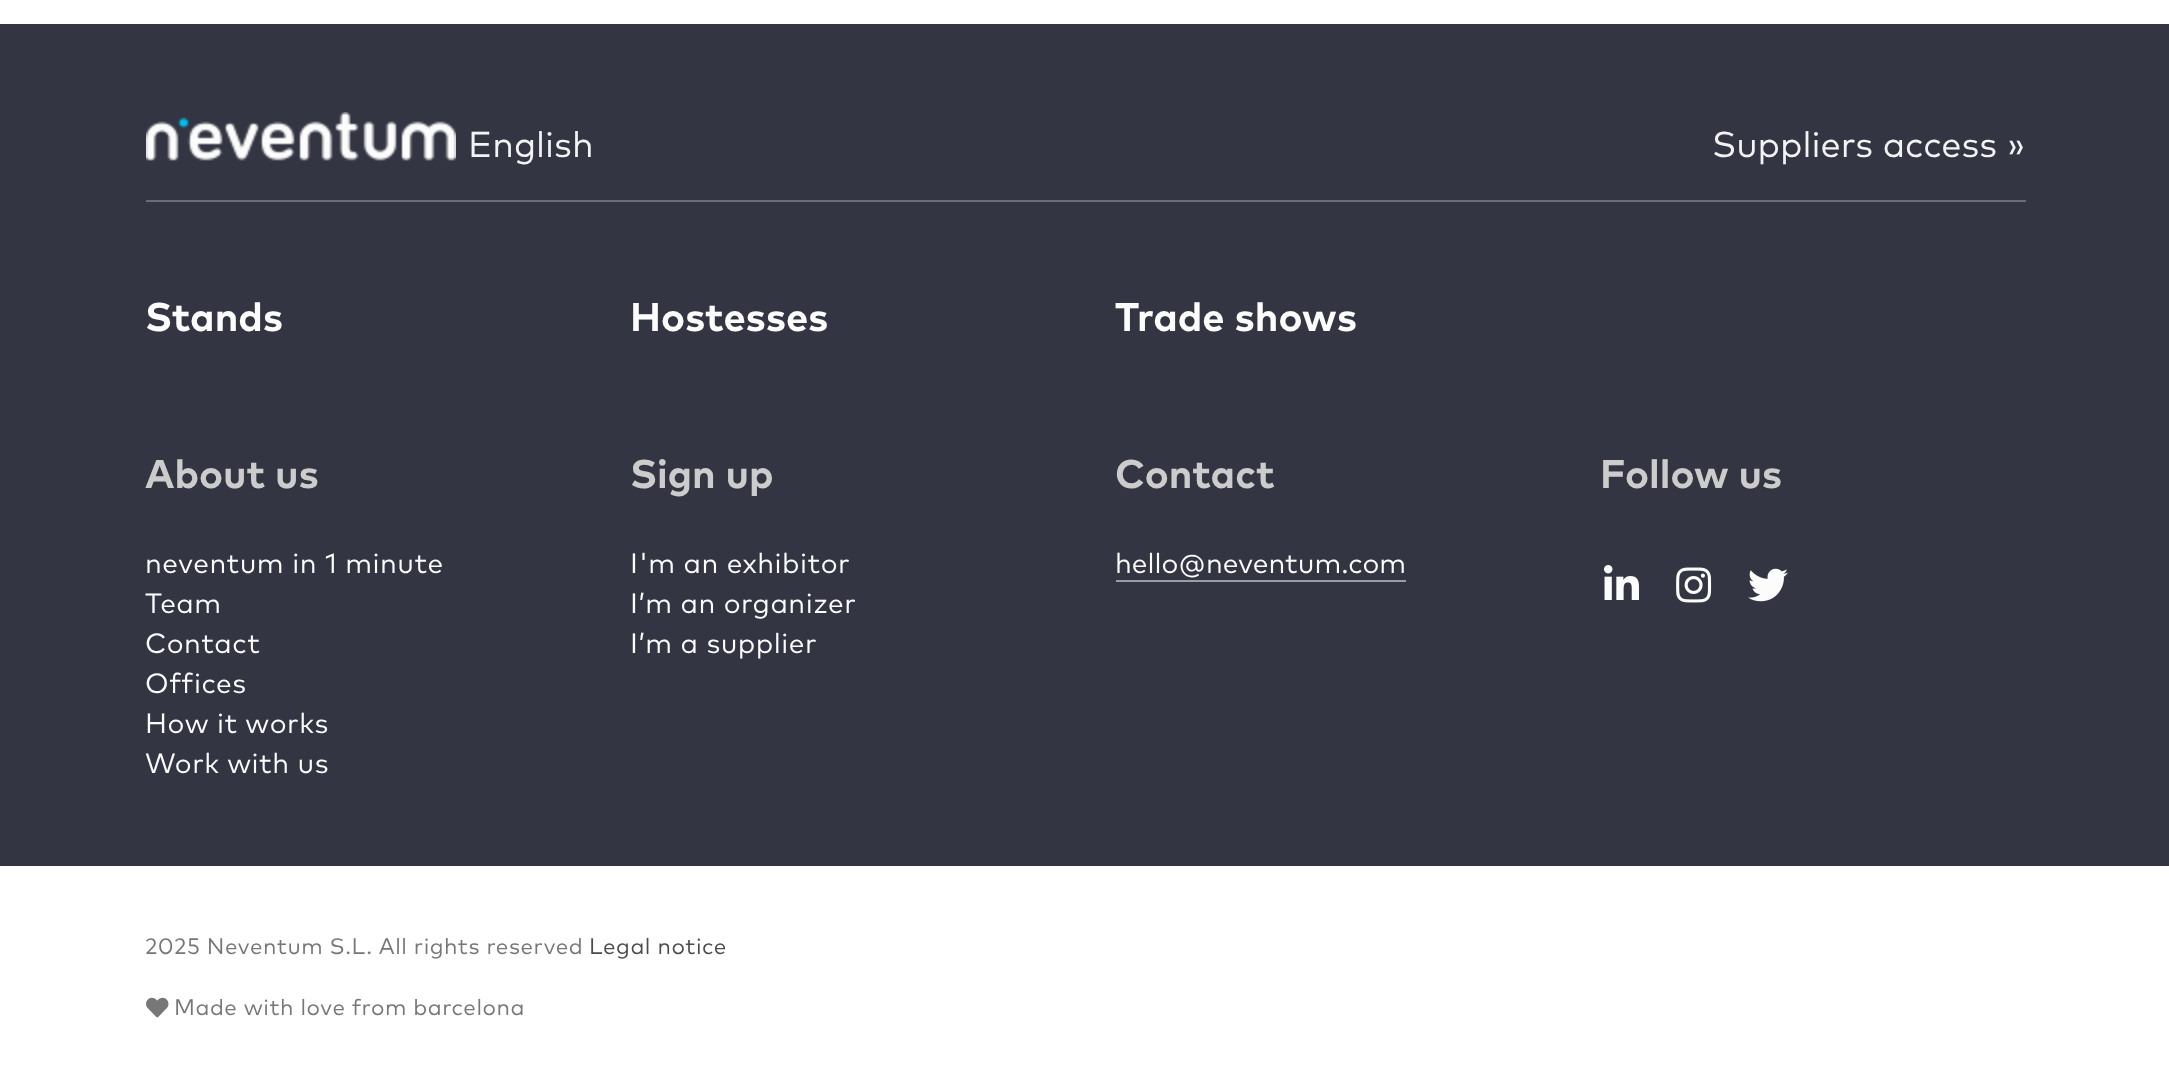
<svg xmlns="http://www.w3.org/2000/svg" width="2169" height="1088">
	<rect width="100%" height="100%" fill="#333642" />
	<rect x="0" y="0" width="2169" height="24" fill="#FFFFFF" />
	<image x="146" y="112" width="310" height="49" href="assets/img1.png" />
	<g font-family="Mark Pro" font-size="36" fill="#F3F3F4">
		<text x="468" y="157">English</text>
		<text x="1712" y="157">Suppliers access »</text>
	</g>
	<rect x="146" y="200" width="1880" height="2" fill="#6A6C76" />
	<g font-family="Mark Pro" font-size="40" font-weight="700" fill="#FCFCFC">
		<text x="145" y="331">Stands</text>
		<text x="630" y="331">Hostesses</text>
		<text x="1115" y="331">Trade shows</text>
	</g>
	<text x="145" y="488" font-family="Mark Pro" font-size="40" font-weight="700" fill="#CCCCCC">About us</text>
	<g font-family="Mark Pro" font-size="28" letter-spacing="0.5" fill="#FCFCFC">
		<text x="145" y="573">neventum in 1 minute</text>
		<text x="145" y="613">Team</text>
		<text x="145" y="653">Contact</text>
		<text x="145" y="693">Offices</text>
		<text x="145" y="733">How it works</text>
		<text x="145" y="773">Work with us</text>
	</g>
	<text x="630" y="488" font-family="Mark Pro" font-size="40" font-weight="700" fill="#CCCCCC">Sign up</text>
	<g font-family="Mark Pro" font-size="28" letter-spacing="0.5" fill="#FCFCFC">
		<text x="630" y="573">I'm an exhibitor</text>
		<text x="630" y="613">I’m an organizer</text>
		<text x="630" y="653">I’m a supplier</text>
	</g>
	<text x="1115" y="488" font-family="Mark Pro" font-size="40" font-weight="700" fill="#CCCCCC">Contact</text>
	<text x="1115" y="573" font-family="Mark Pro" font-size="28" fill="#FCFCFC">hello@neventum.com</text>
	<rect x="1116" y="580" width="290" height="2" fill="#9B9DA3" />
	<text x="1600" y="488" font-family="Mark Pro" font-size="40" font-weight="700" fill="#CCCCCC">Follow us</text>
	<image x="1604" y="565" width="35" height="35" href="assets/img2.png" />
	<image x="1676" y="567" width="36" height="36" href="assets/img3.png" />
	<image x="1748" y="568" width="40" height="34" href="assets/img4.png" />
	<rect x="0" y="866" width="2169" height="222" fill="#FFFFFF" />
	<text x="145" y="954" font-family="Mark Pro" font-size="22.4" letter-spacing="0.5" fill="#777777">2025 Neventum S.L. All rights reserved</text>
	<text x="589" y="954" font-family="Mark Pro" font-size="22.4" letter-spacing="0.5" fill="#4D4C4C">Legal notice</text>
	<image x="146" y="997" width="23" height="21" href="assets/img5.png" />
	<text x="174" y="1015" font-family="Mark Pro" font-size="22.4" letter-spacing="0.5" fill="#777777">Made with love from barcelona</text>
</svg>
